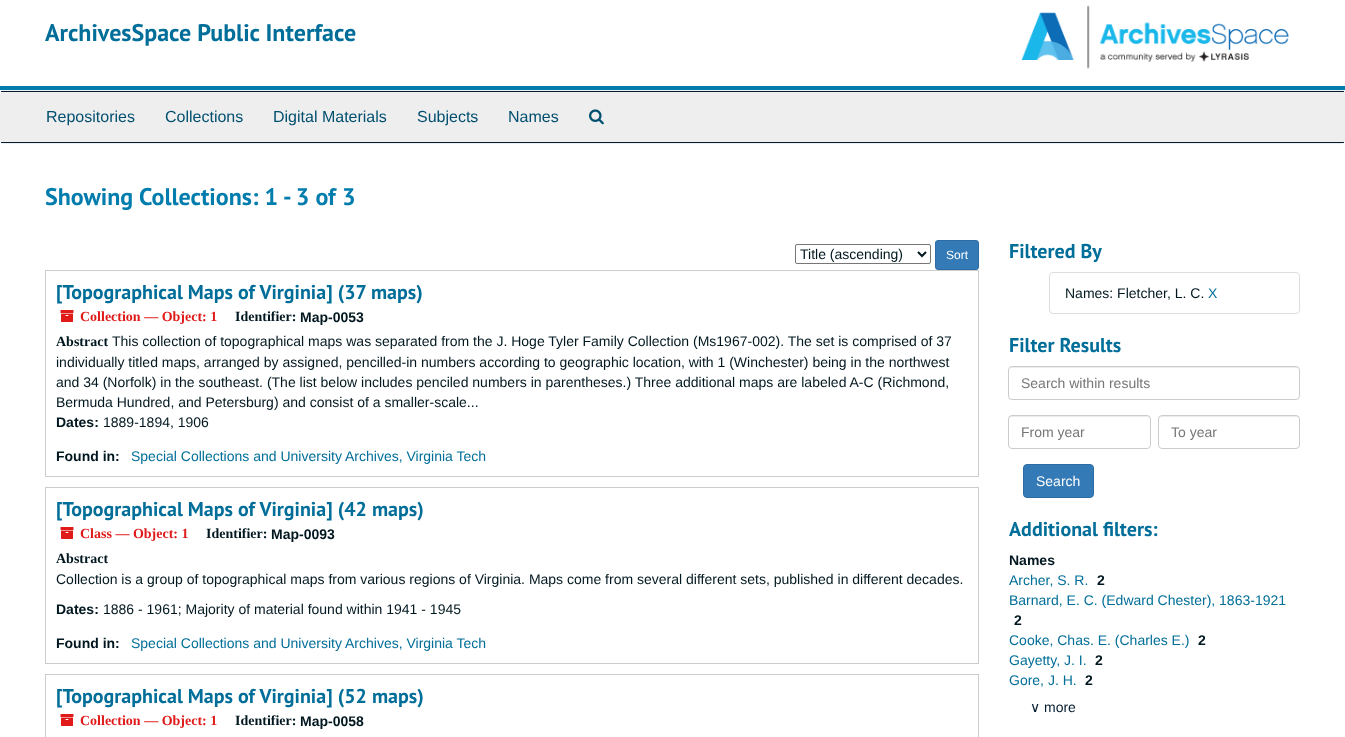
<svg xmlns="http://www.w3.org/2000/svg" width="1345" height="737">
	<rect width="100%" height="100%" fill="#FFFFFF" />
	<rect x="0" y="86" width="1345" height="4" fill="#007CAD" />
	<text x="45" y="41" font-family="PT Sans" font-size="24" font-weight="700" fill="#006E99">ArchivesSpace Public Interface</text>
	<image x="1021" y="5" width="268" height="64" href="assets/img1.png" />
	<rect x="0.5" y="90.5" width="1344" height="53" rx="3.5" fill="#EEEEEE" stroke="#EEEEEE" />
	<rect x="1" y="91" width="1343" height="1" fill="#041C2F" />
	<rect x="1" y="142" width="1343" height="1" fill="#041C2F" />
	<g font-family="Liberation Sans" font-size="16" fill="#004F6F">
		<text x="46" y="122">Repositories</text>
		<text x="165" y="122">Collections</text>
		<text x="273" y="122">Digital Materials</text>
		<text x="417" y="122">Subjects</text>
		<text x="508" y="122">Names</text>
	</g>
	<image x="589" y="109" width="15" height="16" href="assets/img2.png" />
	<text x="45" y="205" font-family="PT Sans" font-size="24" font-weight="700" fill="#007CAD">Showing Collections: 1 - 3 of 3</text>
	<rect x="795.5" y="244.5" width="135" height="19" rx="1.5" fill="none" stroke="#767676" />
	<path d="M918 252L922 256L926 252" fill="none" stroke="#00171F" stroke-width="2" />
	<text x="800" y="259" font-family="Liberation Sans" font-size="14" fill="#00171F">Title (ascending)</text>
	<rect x="935.5" y="240.5" width="43" height="29" rx="2.5" fill="#337AB7" stroke="#2E6DA4" />
	<text x="946" y="259" font-family="Liberation Sans" font-size="12" fill="#FFFFFF">Sort</text>
	<rect x="45.5" y="270.5" width="933" height="206" fill="none" stroke="#CCCCCC" />
	<text x="56" y="299" font-family="PT Sans" font-size="20" font-weight="700" fill="#006E99">[Topographical Maps of Virginia] (37 maps)</text>
	<image x="60" y="310" width="14" height="12" href="assets/img3.png" />
	<text x="80" y="321" font-family="Liberation Serif" font-size="14" font-weight="700" fill="#E01919">Collection — Object: 1</text>
	<text x="235" y="321" font-family="Liberation Serif" font-size="14" font-weight="700" fill="#00171F">Identifier:</text>
	<text x="300" y="322" font-family="Liberation Sans" font-size="14" font-weight="700" fill="#00171F">Map-0053</text>
	<text x="56" y="346" font-family="Liberation Serif" font-size="14" font-weight="700" fill="#00171F">Abstract</text>
	<g font-family="Liberation Sans" font-size="14" fill="#00171F">
		<text x="112" y="346">This collection of topographical maps was separated from the J. Hoge Tyler Family Collection (Ms1967-002). The set is comprised of 37</text>
		<text x="56" y="367">individually titled maps, arranged by assigned, pencilled-in numbers according to geographic location, with 1 (Winchester) being in the northwest</text>
		<text x="56" y="387">and 34 (Norfolk) in the southeast. (The list below includes penciled numbers in parentheses.) Three additional maps are labeled A-C (Richmond,</text>
		<text x="56" y="407">Bermuda Hundred, and Petersburg) and consist of a smaller-scale...</text>
	</g>
	<text x="56" y="427" font-family="Liberation Sans" font-size="14" font-weight="700" fill="#00171F">Dates:</text>
	<text x="103" y="427" font-family="Liberation Sans" font-size="14" fill="#00171F">1889-1894, 1906</text>
	<text x="56" y="461" font-family="Liberation Sans" font-size="14" font-weight="700" fill="#00171F">Found in:</text>
	<text x="131" y="461" font-family="Liberation Sans" font-size="14" fill="#006E99">Special Collections and University Archives, Virginia Tech</text>
	<rect x="45.5" y="487.5" width="933" height="176" fill="none" stroke="#CCCCCC" />
	<text x="56" y="516" font-family="PT Sans" font-size="20" font-weight="700" fill="#006E99">[Topographical Maps of Virginia] (42 maps)</text>
	<image x="60" y="527" width="14" height="12" href="assets/img3.png" />
	<text x="80" y="538" font-family="Liberation Serif" font-size="14" font-weight="700" fill="#E01919">Class — Object: 1</text>
	<text x="206" y="538" font-family="Liberation Serif" font-size="14" font-weight="700" fill="#00171F">Identifier:</text>
	<text x="271" y="539" font-family="Liberation Sans" font-size="14" font-weight="700" fill="#00171F">Map-0093</text>
	<text x="56" y="563" font-family="Liberation Serif" font-size="14" font-weight="700" fill="#00171F">Abstract</text>
	<text x="56" y="584" font-family="Liberation Sans" font-size="14" fill="#00171F">Collection is a group of topographical maps from various regions of Virginia. Maps come from several different sets, published in different decades.</text>
	<text x="56" y="614" font-family="Liberation Sans" font-size="14" font-weight="700" fill="#00171F">Dates:</text>
	<text x="103" y="614" font-family="Liberation Sans" font-size="14" fill="#00171F">1886 - 1961; Majority of material found within 1941 - 1945</text>
	<text x="56" y="648" font-family="Liberation Sans" font-size="14" font-weight="700" fill="#00171F">Found in:</text>
	<text x="131" y="648" font-family="Liberation Sans" font-size="14" fill="#006E99">Special Collections and University Archives, Virginia Tech</text>
	<rect x="45.5" y="674.5" width="933" height="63" fill="none" stroke="#CCCCCC" />
	<text x="56" y="703" font-family="PT Sans" font-size="20" font-weight="700" fill="#006E99">[Topographical Maps of Virginia] (52 maps)</text>
	<image x="60" y="714" width="14" height="12" href="assets/img3.png" />
	<text x="80" y="725" font-family="Liberation Serif" font-size="14" font-weight="700" fill="#E01919">Collection — Object: 1</text>
	<text x="235" y="725" font-family="Liberation Serif" font-size="14" font-weight="700" fill="#00171F">Identifier:</text>
	<text x="300" y="726" font-family="Liberation Sans" font-size="14" font-weight="700" fill="#00171F">Map-0058</text>
	<text x="1009" y="258" font-family="PT Sans" font-size="20" font-weight="700" fill="#006E99">Filtered By</text>
	<rect x="1049.5" y="272.5" width="250" height="41" rx="3.5" fill="none" stroke="#DDDDDD" />
	<text x="1065" y="298" font-family="Liberation Sans" font-size="14" fill="#00171F">Names: Fletcher, L. C.</text>
	<text x="1208" y="298" font-family="Liberation Sans" font-size="14" fill="#006E99">X</text>
	<text x="1009" y="352" font-family="PT Sans" font-size="20" font-weight="700" fill="#006E99">Filter Results</text>
	<path d="M1012 368H1296C1298 368 1299 369 1299 371C1299 369 1298 367 1296 367H1012C1010 367 1009 369 1009 371C1009 369 1010 368 1012 368Z" fill="#ECECEC" />
	<rect x="1008.5" y="366.5" width="291" height="33" rx="3.5" fill="none" stroke="#CCCCCC" />
	<text x="1021" y="388" font-family="Liberation Sans" font-size="14" fill="#767676">Search within results</text>
	<path d="M1012 417H1147C1149 417 1150 418 1150 420V419C1150 417 1149 416 1147 416H1012C1010 416 1009 417 1009 419V420C1009 418 1010 417 1012 417Z" fill="#ECECEC" />
	<rect x="1008.5" y="415.5" width="142" height="33" rx="3.5" fill="none" stroke="#CCCCCC" />
	<text x="1021" y="437" font-family="Liberation Sans" font-size="14" fill="#767676">From year</text>
	<path d="M1162 417H1296C1298 417 1299 418 1299 420V419C1299 417 1298 416 1296 416H1162C1160 416 1159 417 1159 419V420C1159 418 1160 417 1162 417Z" fill="#ECECEC" />
	<rect x="1158.5" y="415.5" width="141" height="33" rx="3.5" fill="none" stroke="#CCCCCC" />
	<text x="1171" y="437" font-family="Liberation Sans" font-size="14" fill="#767676">To year</text>
	<rect x="1023.5" y="464.5" width="70" height="33" rx="3.5" fill="#337AB7" stroke="#2E6DA4" />
	<text x="1036" y="486" font-family="Liberation Sans" font-size="14" fill="#FFFFFF">Search</text>
	<text x="1009" y="536" font-family="PT Sans" font-size="20" font-weight="700" fill="#006E99">Additional filters:</text>
	<text x="1009" y="565" font-family="Liberation Sans" font-size="14" font-weight="700" fill="#00171F">Names</text>
	<text x="1009" y="585" font-family="Liberation Sans" font-size="14" fill="#006E99">Archer, S. R.</text>
	<text x="1097" y="585" font-family="Liberation Sans" font-size="14" font-weight="700" fill="#00171F">2</text>
	<text x="1009" y="605" font-family="Liberation Sans" font-size="14" fill="#006E99">Barnard, E. C. (Edward Chester), 1863-1921</text>
	<text x="1014" y="625" font-family="Liberation Sans" font-size="14" font-weight="700" fill="#00171F">2</text>
	<text x="1009" y="645" font-family="Liberation Sans" font-size="14" fill="#006E99">Cooke, Chas. E. (Charles E.)</text>
	<text x="1198" y="645" font-family="Liberation Sans" font-size="14" font-weight="700" fill="#00171F">2</text>
	<text x="1009" y="665" font-family="Liberation Sans" font-size="14" fill="#006E99">Gayetty, J. I.</text>
	<text x="1095" y="665" font-family="Liberation Sans" font-size="14" font-weight="700" fill="#00171F">2</text>
	<text x="1009" y="685" font-family="Liberation Sans" font-size="14" fill="#006E99">Gore, J. H.</text>
	<text x="1085" y="685" font-family="Liberation Sans" font-size="14" font-weight="700" fill="#00171F">2</text>
	<text x="1030" y="712" font-family="DejaVu Sans" font-size="14" fill="#041C2F">∨</text>
	<text x="1044" y="712" font-family="Liberation Sans" font-size="14" fill="#041C2F">more</text>
</svg>
